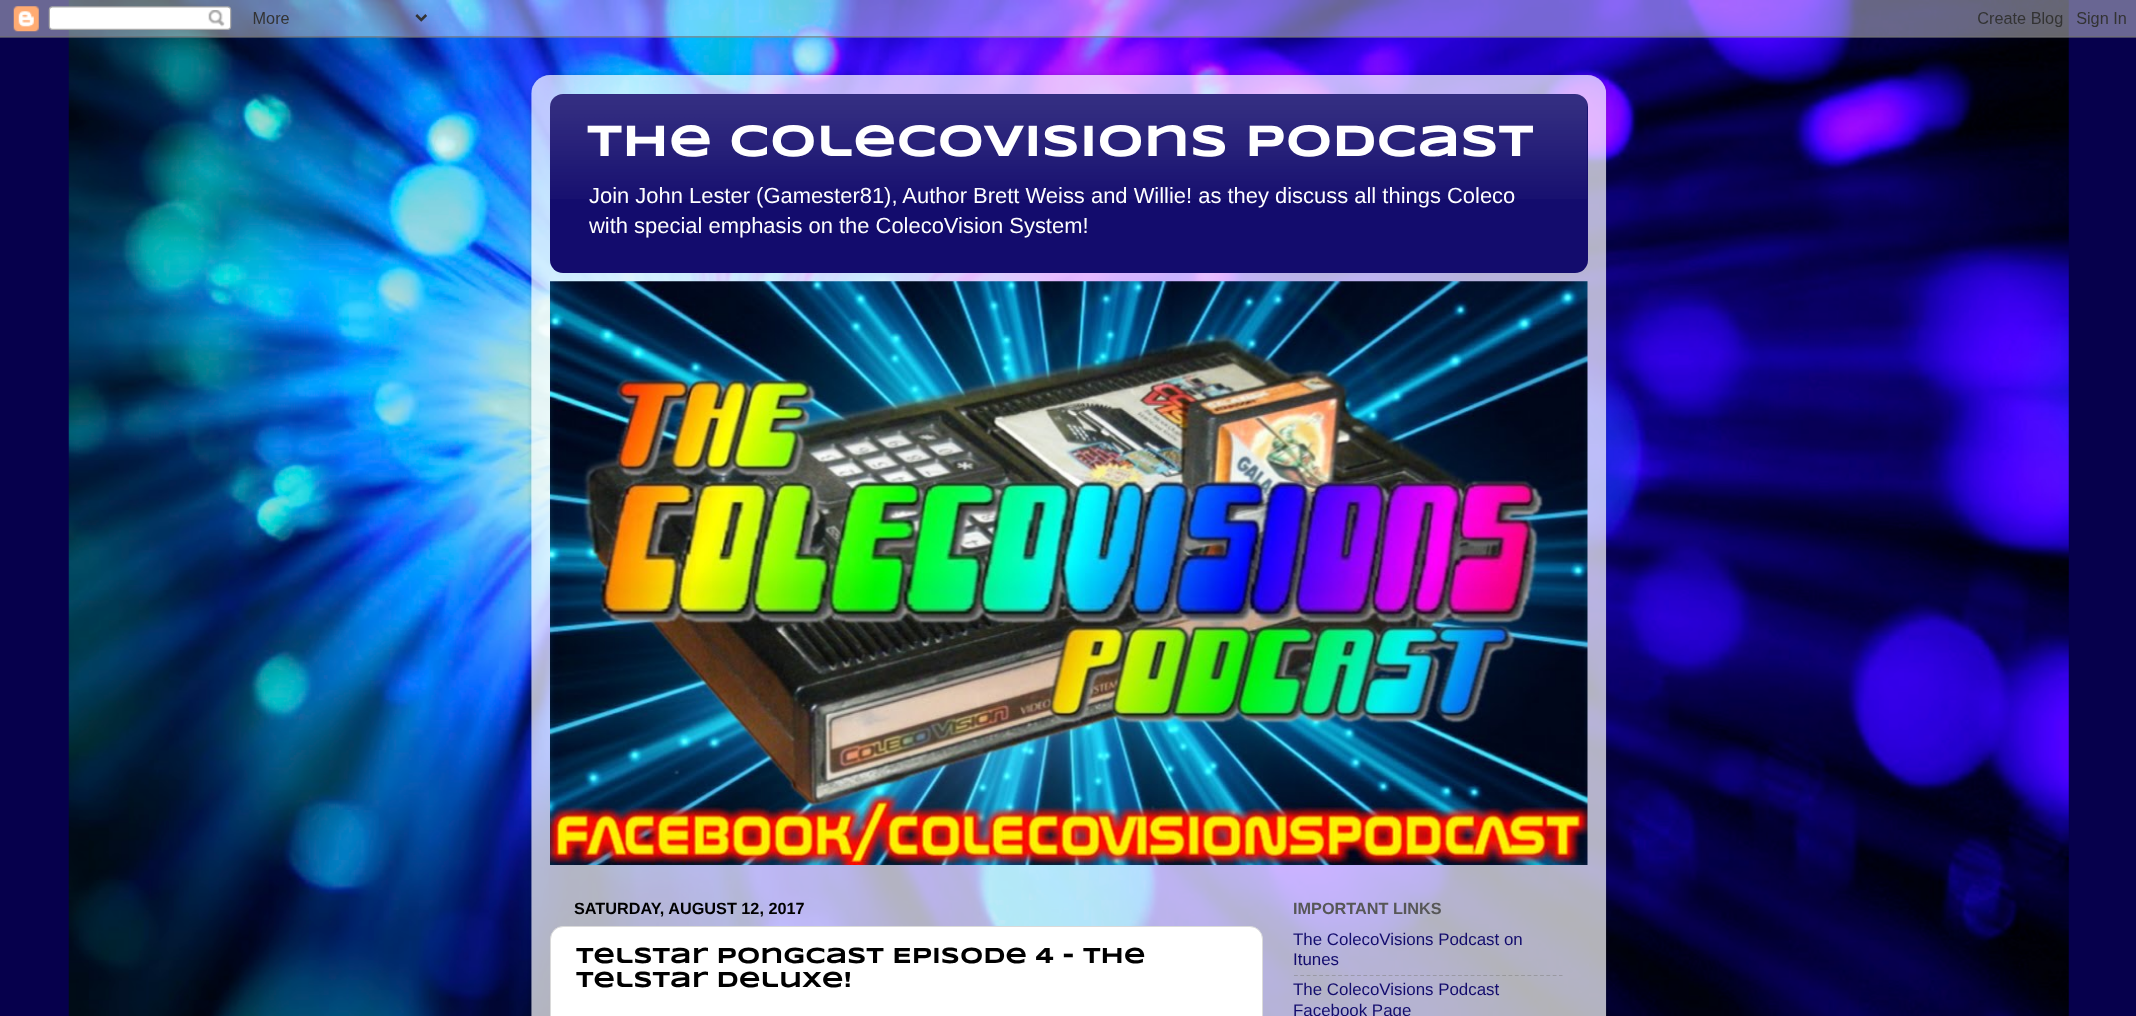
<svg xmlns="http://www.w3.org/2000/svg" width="2136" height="1016">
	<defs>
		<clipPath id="clip1"><path d="M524 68H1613V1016H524ZM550 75H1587C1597.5 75 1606 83.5 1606 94V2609C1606 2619.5 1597.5 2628 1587 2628H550C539.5 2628 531 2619.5 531 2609V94C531 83.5 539.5 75 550 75Z" clip-rule="evenodd" /></clipPath>
	</defs>
	<rect width="100%" height="100%" fill="#06004C" />
	<image x="68" y="0" width="2001" height="1016" href="assets/img1.png" />
	<image x="0" y="0" width="2136" height="38" href="assets/img2.png" />
	<g clip-path="url(#clip1)">
		<rect x="531" y="75" width="1075" height="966" rx="19" fill="#000000" fill-opacity="0.15" filter="blur(2px)" />
	</g>
	<image x="531" y="75" width="1076" height="941" href="assets/img3.png" />
	<rect x="550" y="94" width="1038" height="179" rx="13" fill="#130C6D" />
	<image x="550" y="94" width="1038" height="105" href="assets/img4.png" />
	<text x="587" y="156" font-family="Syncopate" font-size="45" font-weight="700" fill="#FFFFFF">The Colecovisions Podcast</text>
	<g font-family="Liberation Sans" font-size="21.95" fill="#FFFFFF">
		<text x="589" y="203">Join John Lester (Gamester81), Author Brett Weiss and Willie! as they discuss all things Coleco</text>
		<text x="589" y="233">with special emphasis on the ColecoVision System!</text>
	</g>
	<image x="550" y="281" width="1038" height="584" href="assets/img5.png" />
	<text x="574" y="914" font-family="Liberation Sans" font-size="16.25" font-weight="700" fill="#000000">SATURDAY, AUGUST 12, 2017</text>
	<rect x="550.5" y="926.5" width="712" height="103" rx="12.5" fill="#FFFFFF" stroke="#DADADA" />
	<g font-family="Syncopate" font-size="22.5" font-weight="700" fill="#000000">
		<text x="576" y="963">Telstar PongCast Episode 4 - The</text>
		<text x="576" y="987">Telstar Deluxe!</text>
	</g>
	<text x="1293" y="914" font-family="Liberation Sans" font-size="16.25" font-weight="700" fill="#575757">IMPORTANT LINKS</text>
	<g font-family="Liberation Sans" font-size="16.9" fill="#130C6D">
		<text x="1293" y="945">The ColecoVisions Podcast on</text>
		<text x="1293" y="965">Itunes</text>
	</g>
	<path d="M1294 975.5H1562.5" fill="none" stroke="#808080" stroke-opacity="0.5" stroke-width="1.2" stroke-dasharray="3.75 2.56" />
	<g font-family="Liberation Sans" font-size="16.9" fill="#130C6D">
		<text x="1293" y="995">The ColecoVisions Podcast</text>
		<text x="1293" y="1016">Facebook Page</text>
	</g>
</svg>
